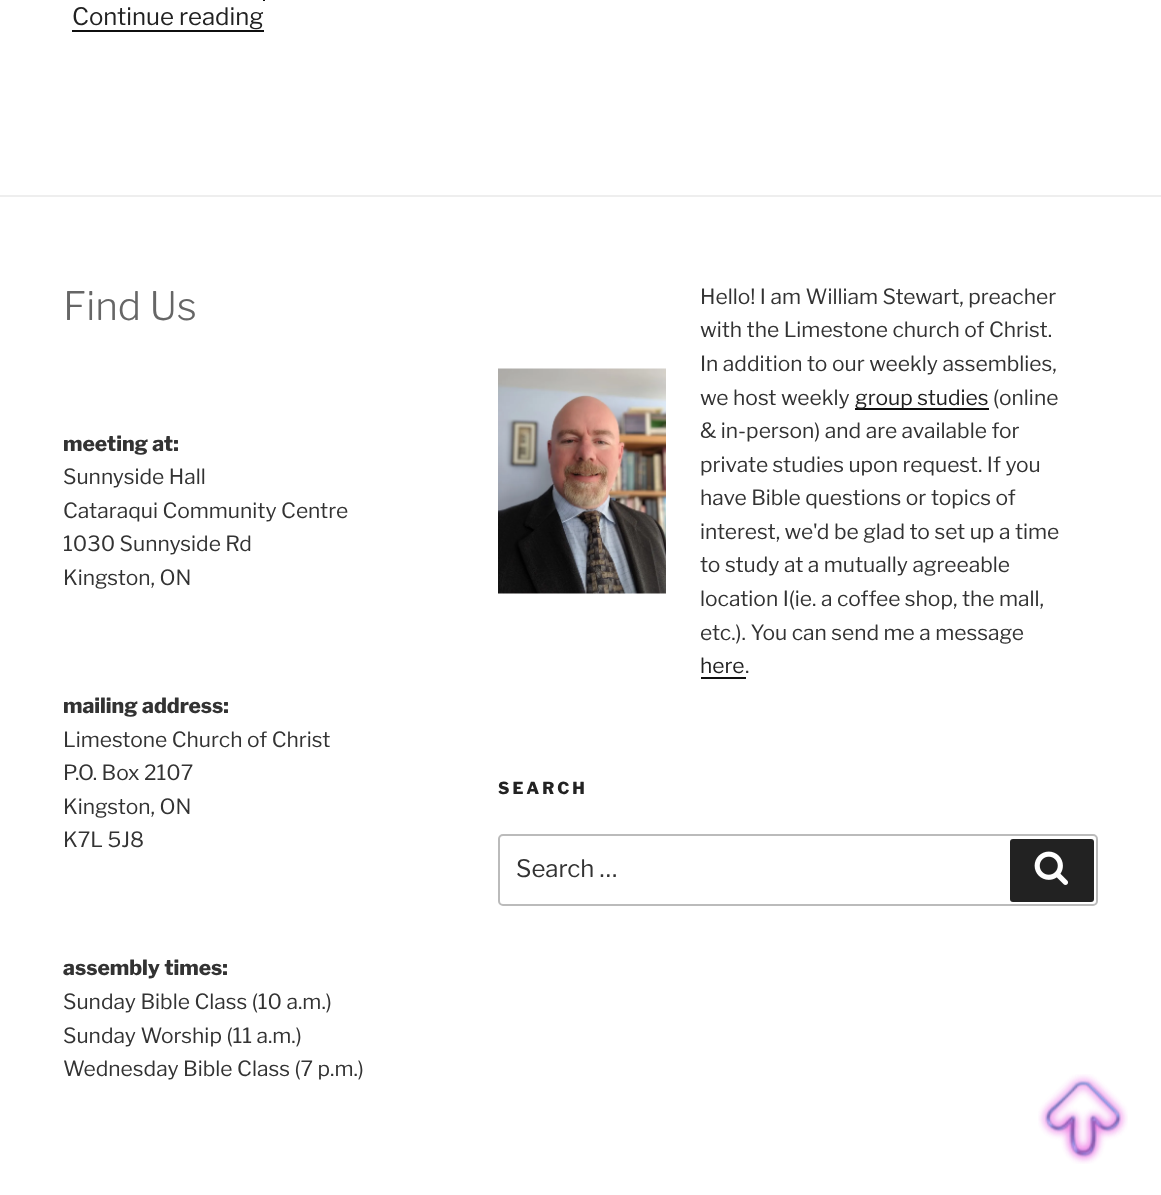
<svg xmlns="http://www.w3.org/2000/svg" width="1161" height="1195">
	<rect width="100%" height="100%" fill="#FFFFFF" />
	<text x="72" y="25" font-family="Libre Franklin" font-size="24" font-weight="100" fill="#222222">Continue reading</text>
	<rect x="72" y="30" width="192" height="2" fill="#0F0F0F" />
	<rect x="263" y="0" width="2" height="1" fill="#0F0F0F" />
	<rect x="0" y="195" width="1161" height="2" fill="#EEEEEE" />
	<text x="63" y="320" font-family="'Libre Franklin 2'" font-size="39" font-weight="100" fill="#666666">Find Us</text>
	<text x="63" y="451" font-family="'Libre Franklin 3'" font-size="21" font-weight="100" fill="#333333">meeting at:</text>
	<g font-family="Libre Franklin" font-size="21" font-weight="100" fill="#333333">
		<text x="63" y="484">Sunnyside Hall</text>
		<text x="63" y="518">Cataraqui Community Centre</text>
		<text x="63" y="551">1030 Sunnyside Rd</text>
		<text x="63" y="585">Kingston, ON</text>
	</g>
	<text x="63" y="713" font-family="'Libre Franklin 3'" font-size="21" font-weight="100" fill="#333333">mailing address:</text>
	<g font-family="Libre Franklin" font-size="21" font-weight="100" fill="#333333">
		<text x="63" y="747">Limestone Church of Christ</text>
		<text x="63" y="780">P.O. Box 2107</text>
		<text x="63" y="814">Kingston, ON</text>
		<text x="63" y="847">K7L 5J8</text>
	</g>
	<text x="63" y="975" font-family="'Libre Franklin 3'" font-size="21" font-weight="100" fill="#333333">assembly times:</text>
	<g font-family="Libre Franklin" font-size="21" font-weight="100" fill="#333333">
		<text x="63" y="1009">Sunday Bible Class (10 a.m.)</text>
		<text x="63" y="1043">Sunday Worship (11 a.m.)</text>
		<text x="63" y="1076">Wednesday Bible Class (7 p.m.)</text>
	</g>
	<image x="498" y="368" width="168" height="226" href="assets/img1.png" />
	<g font-family="Libre Franklin" font-size="21" font-weight="100" fill="#333333">
		<text x="700" y="304">Hello! I am William Stewart, preacher</text>
		<text x="700" y="337">with the Limestone church of Christ.</text>
		<text x="700" y="371">In addition to our weekly assemblies,</text>
		<text x="700" y="405">we host weekly</text>
	</g>
	<rect x="855" y="408" width="134" height="2" fill="#0F0F0F" />
	<text x="855" y="405" font-family="Libre Franklin" font-size="21" font-weight="100" fill="#222222">group studies</text>
	<g font-family="Libre Franklin" font-size="21" font-weight="100" fill="#333333">
		<text x="993" y="405">(online</text>
		<text x="700" y="438">&amp; in-person) and are available for</text>
		<text x="700" y="472">private studies upon request. If you</text>
		<text x="700" y="505">have Bible questions or topics of</text>
		<text x="700" y="539">interest, we'd be glad to set up a time</text>
		<text x="700" y="572">to study at a mutually agreeable</text>
		<text x="700" y="606">location I(ie. a coffee shop, the mall,</text>
		<text x="700" y="640">etc.). You can send me a message</text>
	</g>
	<text x="700" y="673" font-family="Libre Franklin" font-size="21" font-weight="100" fill="#222222">here</text>
	<rect x="701" y="677" width="45" height="2" fill="#0F0F0F" />
	<text x="745" y="673" font-family="Libre Franklin" font-size="21" font-weight="100" fill="#333333">.</text>
	<text x="498" y="794" font-family="'Libre Franklin 3'" font-size="16.5" font-weight="100" letter-spacing="3" fill="#222222">SEARCH</text>
	<rect x="499" y="835" width="598" height="70" rx="4" fill="none" stroke="#BBBBBB" stroke-width="2" />
	<text x="516" y="877" font-family="Libre Franklin" font-size="24" font-weight="100" fill="#333333">Search …</text>
	<rect x="1010" y="839" width="84" height="63" rx="3" fill="#222222" />
	<image x="1034" y="851" width="34" height="34" href="assets/img2.png" />
	<image x="1038" y="1074" width="90" height="90" href="assets/img3.png" />
</svg>
